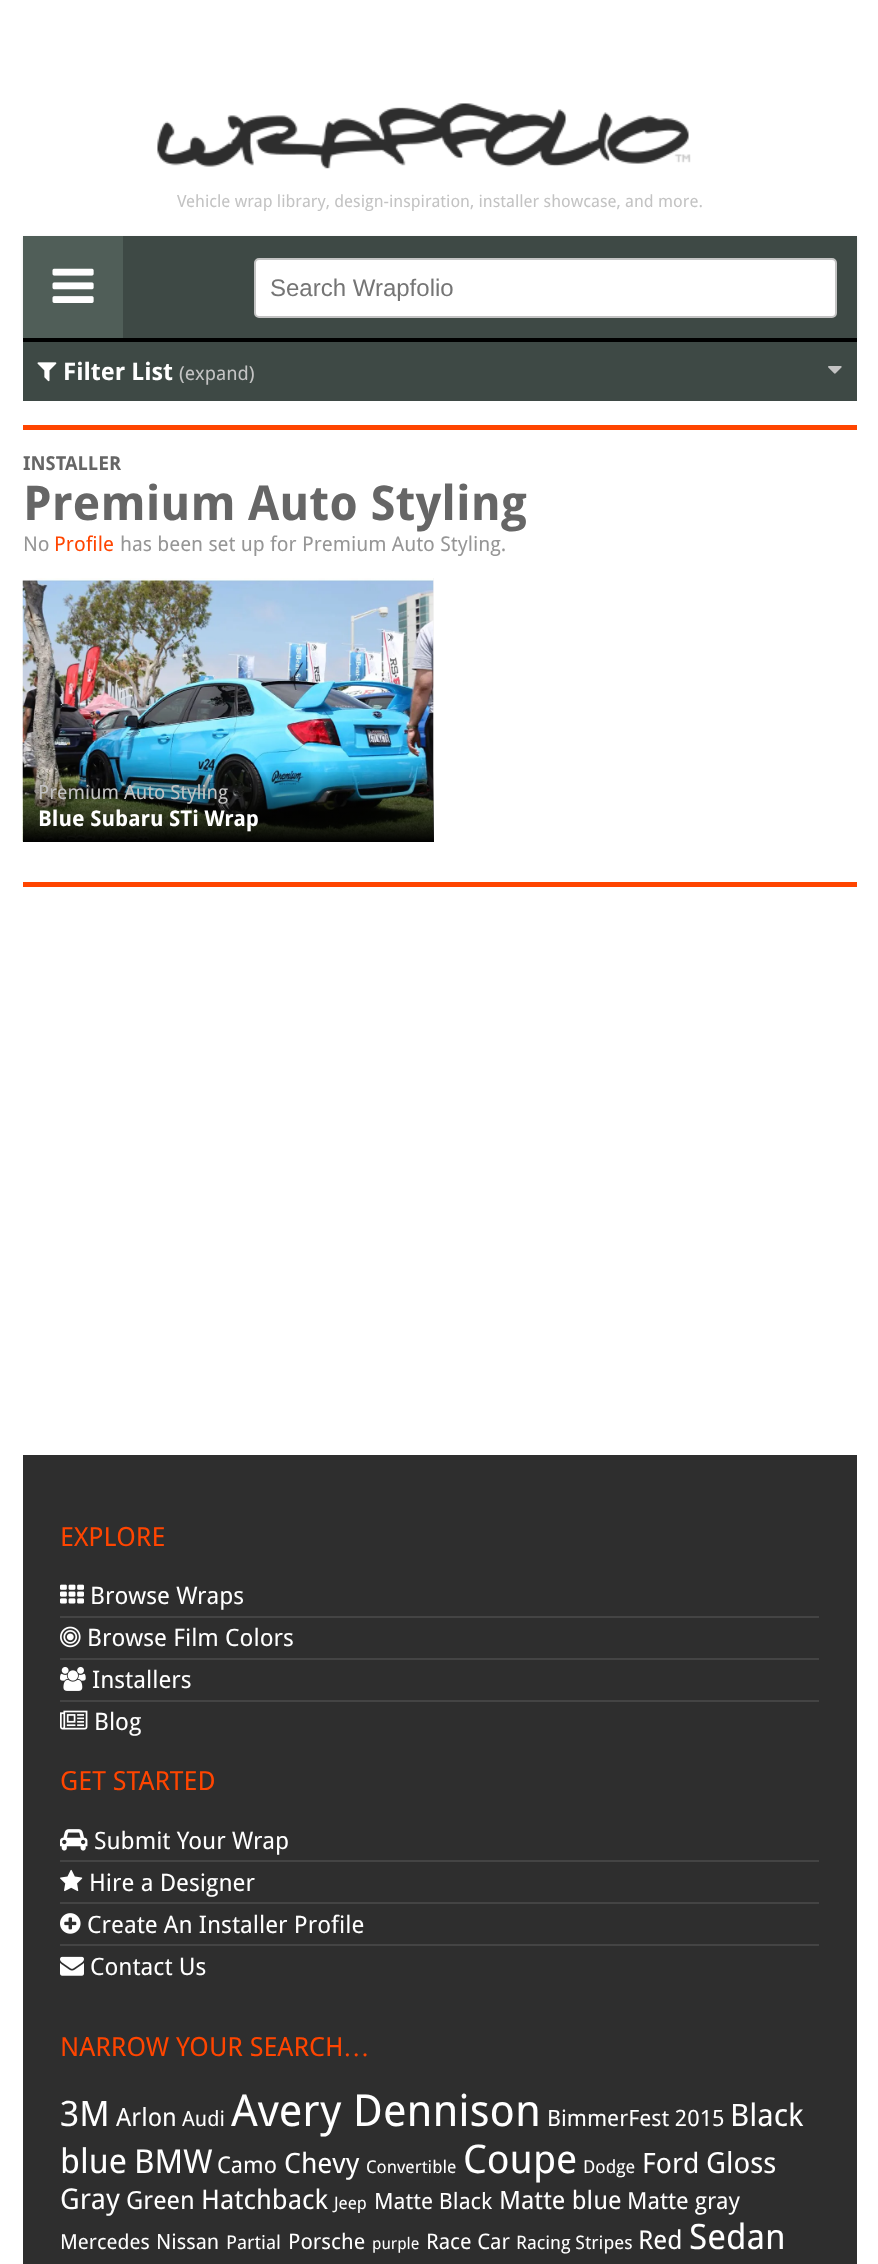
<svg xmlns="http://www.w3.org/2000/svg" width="878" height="2264">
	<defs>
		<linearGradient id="g1" gradientUnits="userSpaceOnUse" x1="228" y1="770" x2="228" y2="842"><stop offset="0" stop-color="#000000" stop-opacity="0" /><stop offset="1" stop-color="#000000" /></linearGradient>
	</defs>
	<rect width="100%" height="100%" fill="#FFFFFF" />
	<image x="157" y="103" width="534" height="66" href="assets/img1.png" />
	<text x="177" y="207" font-family="Droid Sans" font-size="16.8" fill="#C3C3C3">Vehicle wrap library, design-inspiration, installer showcase, and more.</text>
	<rect x="23" y="237" width="834" height="102" fill="#000000" fill-opacity="0.1" filter="blur(1.5px)" />
	<rect x="123" y="236" width="734" height="102" fill="#3E4945" />
	<rect x="23" y="236" width="100" height="102" fill="#505E58" />
	<image x="52" y="268" width="42" height="35" href="assets/img2.png" />
	<rect x="255" y="259" width="581" height="58" rx="4" fill="#FFFFFF" stroke="#C3C3C3" stroke-width="2" />
	<text x="270" y="296" font-family="Liberation Sans" font-size="24" fill="#757575">Search Wrapfolio</text>
	<rect x="23" y="338" width="834" height="4" fill="#000000" />
	<rect x="23" y="342" width="834" height="59" fill="#3E4945" />
	<image x="37" y="362" width="20" height="20" href="assets/img3.png" />
	<text x="63" y="380" font-family="Droid Sans" font-size="24" font-weight="700" fill="#FFFFFF">Filter List</text>
	<text x="179" y="380" font-family="Droid Sans" font-size="19.25" fill="#C3C3C3">(expand)</text>
	<image x="828" y="366" width="14" height="8" href="assets/img4.png" />
	<rect x="23" y="425" width="834" height="5" fill="#FF4500" />
	<text x="23" y="470" font-family="Droid Sans" font-size="19.25" font-weight="700" fill="#666666">INSTALLER</text>
	<text x="23" y="520" font-family="Droid Sans" font-size="48" font-weight="700" fill="#666666">Premium Auto Styling</text>
	<text x="23" y="551" font-family="Droid Sans" font-size="20.4" fill="#969696">No</text>
	<text x="54" y="551" font-family="Droid Sans" font-size="20.4" fill="#FF4500">Profile</text>
	<text x="120" y="551" font-family="Droid Sans" font-size="20.4" fill="#969696">has been set up for Premium Auto Styling.</text>
	<rect x="23" y="578" width="411" height="264" fill="#F5F5F5" />
	<image x="22" y="578" width="412" height="264" href="assets/img5.png" />
	<rect x="23" y="772" width="411" height="70" fill="url(#g1)" />
	<text x="38" y="799" font-family="Droid Sans" font-size="19.5" fill="#C3C3C3">Premium Auto Styling</text>
	<text x="38" y="826" font-family="Droid Sans" font-size="21.6" font-weight="700" fill="#FFFFFF">Blue Subaru STi Wrap</text>
	<rect x="23" y="882" width="834" height="5" fill="#FF4500" />
	<rect x="23" y="1455" width="834" height="809" fill="#2E2E2E" />
	<text x="60" y="1546" font-family="Droid Sans" font-size="26.4" fill="#FF4500">EXPLORE</text>
	<image x="60" y="1584" width="24" height="20" href="assets/img6.png" />
	<text x="90" y="1604" font-family="Droid Sans" font-size="24" fill="#FFFFFF">Browse Wraps</text>
	<rect x="60" y="1616" width="759" height="2" fill="#444444" />
	<image x="60" y="1626" width="21" height="22" href="assets/img7.png" />
	<text x="87" y="1646" font-family="Droid Sans" font-size="24" fill="#FFFFFF">Browse Film Colors</text>
	<rect x="60" y="1658" width="759" height="2" fill="#444444" />
	<image x="60" y="1666" width="26" height="25" href="assets/img8.png" />
	<text x="92" y="1688" font-family="Droid Sans" font-size="24" fill="#FFFFFF">Installers</text>
	<rect x="60" y="1700" width="759" height="2" fill="#444444" />
	<image x="60" y="1710" width="28" height="20" href="assets/img9.png" />
	<text x="94" y="1730" font-family="Droid Sans" font-size="24" fill="#FFFFFF">Blog</text>
	<text x="60" y="1790" font-family="Droid Sans" font-size="26.4" fill="#FF4500">GET STARTED</text>
	<image x="60" y="1829" width="28" height="22" href="assets/img10.png" />
	<text x="94" y="1849" font-family="Droid Sans" font-size="24" fill="#FFFFFF">Submit Your Wrap</text>
	<rect x="60" y="1860" width="759" height="2" fill="#444444" />
	<image x="60" y="1869" width="23" height="23" href="assets/img11.png" />
	<text x="89" y="1891" font-family="Droid Sans" font-size="24" fill="#FFFFFF">Hire a Designer</text>
	<rect x="60" y="1902" width="759" height="2" fill="#444444" />
	<image x="60" y="1913" width="21" height="21" href="assets/img12.png" />
	<text x="87" y="1933" font-family="Droid Sans" font-size="24" fill="#FFFFFF">Create An Installer Profile</text>
	<rect x="60" y="1944" width="759" height="2" fill="#444444" />
	<image x="60" y="1956" width="24" height="20" href="assets/img13.png" />
	<text x="90" y="1975" font-family="Droid Sans" font-size="24" fill="#FFFFFF">Contact Us</text>
	<text x="60" y="2056" font-family="Droid Sans" font-size="26.4" fill="#FF4500">NARROW YOUR SEARCH</text>
	<text x="343" y="2056" font-family="Liberation Serif" font-size="26.4" fill="#FF4500">…</text>
	<text x="60" y="2126" font-family="Droid Sans" font-size="35" fill="#FFFFFF">3M</text>
	<text x="116" y="2126" font-family="Droid Sans" font-size="25" fill="#FFFFFF">Arlon</text>
	<text x="182" y="2126" font-family="Droid Sans" font-size="21" fill="#FFFFFF">Audi</text>
	<text x="231" y="2126" font-family="Droid Sans" font-size="44" fill="#FFFFFF">Avery Dennison</text>
	<text x="547" y="2126" font-family="Droid Sans" font-size="22.5" fill="#FFFFFF">BimmerFest 2015</text>
	<text x="730" y="2126" font-family="Droid Sans" font-size="31" fill="#FFFFFF">Black</text>
	<text x="60" y="2173" font-family="Droid Sans" font-size="34" fill="#FFFFFF">blue</text>
	<text x="134" y="2173" font-family="Droid Sans" font-size="33" fill="#FFFFFF">BMW</text>
	<text x="217" y="2173" font-family="Droid Sans" font-size="23" fill="#FFFFFF">Camo</text>
	<text x="284" y="2173" font-family="Droid Sans" font-size="28" fill="#FFFFFF">Chevy</text>
	<text x="366" y="2173" font-family="Droid Sans" font-size="17.5" fill="#FFFFFF">Convertible</text>
	<text x="463" y="2173" font-family="Droid Sans" font-size="39.5" fill="#FFFFFF">Coupe</text>
	<text x="583" y="2173" font-family="Droid Sans" font-size="18" fill="#FFFFFF">Dodge</text>
	<text x="642" y="2173" font-family="Droid Sans" font-size="28" fill="#FFFFFF">Ford</text>
	<text x="706" y="2173" font-family="Droid Sans" font-size="29" fill="#FFFFFF">Gloss</text>
	<text x="60" y="2209" font-family="Droid Sans" font-size="28.5" fill="#FFFFFF">Gray</text>
	<text x="126" y="2209" font-family="Droid Sans" font-size="25" fill="#FFFFFF">Green</text>
	<text x="201" y="2209" font-family="Droid Sans" font-size="27" fill="#FFFFFF">Hatchback</text>
	<text x="334" y="2209" font-family="Droid Sans" font-size="17" fill="#FFFFFF">Jeep</text>
	<text x="374" y="2209" font-family="Droid Sans" font-size="22.5" fill="#FFFFFF">Matte Black</text>
	<text x="499" y="2209" font-family="Droid Sans" font-size="25.25" fill="#FFFFFF">Matte blue</text>
	<text x="627" y="2209" font-family="Droid Sans" font-size="23.5" fill="#FFFFFF">Matte gray</text>
	<text x="60" y="2249" font-family="Droid Sans" font-size="20.5" fill="#FFFFFF">Mercedes</text>
	<text x="156" y="2249" font-family="Droid Sans" font-size="21" fill="#FFFFFF">Nissan</text>
	<text x="226" y="2249" font-family="Droid Sans" font-size="19" fill="#FFFFFF">Partial</text>
	<text x="288" y="2249" font-family="Droid Sans" font-size="21.5" fill="#FFFFFF">Porsche</text>
	<text x="372" y="2249" font-family="Droid Sans" font-size="16" fill="#FFFFFF">purple</text>
	<text x="426" y="2249" font-family="Droid Sans" font-size="21.5" fill="#FFFFFF">Race Car</text>
	<text x="516" y="2249" font-family="Droid Sans" font-size="18.5" fill="#FFFFFF">Racing Stripes</text>
	<text x="638" y="2249" font-family="Droid Sans" font-size="26" fill="#FFFFFF">Red</text>
	<text x="689" y="2249" font-family="Droid Sans" font-size="35" fill="#FFFFFF">Sedan</text>
</svg>
